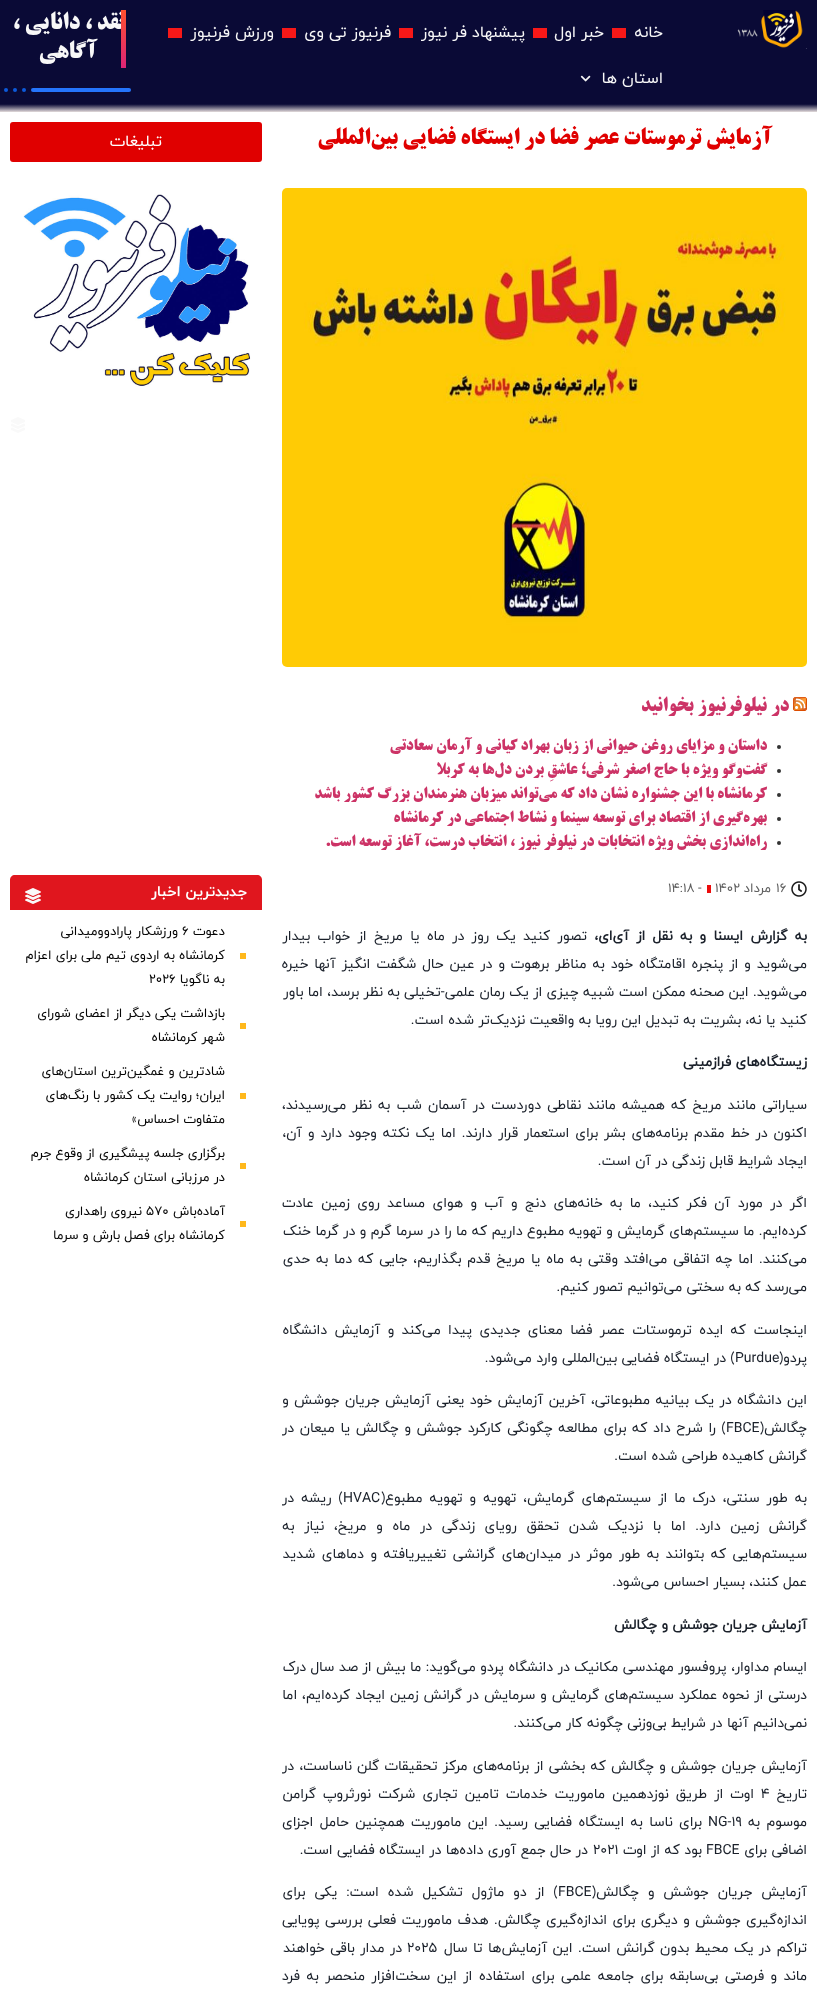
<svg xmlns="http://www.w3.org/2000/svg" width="817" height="1994">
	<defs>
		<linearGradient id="g1" gradientUnits="userSpaceOnUse" x1="409" y1="0" x2="409" y2="112"><stop offset="0.93" stop-color="#0A0A36" /><stop offset="1" stop-color="#E4DCDC" /></linearGradient>
		<linearGradient id="g2" gradientUnits="userSpaceOnUse" x1="124" y1="10" x2="124" y2="68"><stop offset="0" stop-color="#FF512F" /><stop offset="1" stop-color="#DD2476" /></linearGradient>
	</defs>
	<rect width="100%" height="100%" fill="#FFFFFF" />
	<rect x="0" y="0" width="817" height="112" fill="url(#g1)" />
	<image x="737" y="10" width="70" height="39" href="assets/img1.png" />
	<text x="663" y="37" font-family="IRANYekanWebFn" font-size="16" direction="rtl" fill="#F8F8F8">خانه</text>
	<rect x="612" y="28" width="14" height="10" fill="#F71818" />
	<text x="604" y="37" font-family="IRANYekanWebFn" font-size="16" direction="rtl" fill="#F8F8F8">خبر اول</text>
	<rect x="533" y="28" width="14" height="10" fill="#F71818" />
	<text x="525" y="37" font-family="IRANYekanWebFn" font-size="16" direction="rtl" fill="#F8F8F8">پیشنهاد فر نیوز</text>
	<rect x="399" y="28" width="14" height="10" fill="#F71818" />
	<text x="391" y="37" font-family="IRANYekanWebFn" font-size="16" direction="rtl" fill="#F8F8F8">فرنیوز تی وی</text>
	<rect x="282" y="28" width="14" height="10" fill="#F71818" />
	<text x="274" y="37" font-family="IRANYekanWebFn" font-size="16" direction="rtl" fill="#F8F8F8">ورزش فرنیوز</text>
	<rect x="168" y="28" width="14" height="10" fill="#F71818" />
	<text x="663" y="83" font-family="IRANYekanWebFn" font-size="16" direction="rtl" fill="#F8F8F8">استان ها</text>
	<image x="580" y="75" width="11" height="7" href="assets/img2.png" />
	<text x="124" y="29" font-family="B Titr" font-size="24" font-weight="700" direction="rtl" fill="#F8F8F8">نقد</text>
	<rect x="121" y="10" width="5" height="58" fill="url(#g2)" />
	<g font-family="B Titr" font-size="24" font-weight="700" direction="rtl" fill="#F8F8F8">
		<text x="92" y="29">، دانایی ،</text>
		<text x="97" y="58">آگاهی</text>
	</g>
	<rect x="31" y="88" width="100" height="4" rx="2" fill="#2575FC" />
	<circle cx="24" cy="90" r="2" fill="#0C5ADB" />
	<circle cx="15" cy="90" r="2" fill="#0C5ADB" />
	<circle cx="6" cy="90" r="2" fill="#0C5ADB" />
	<text x="772" y="144" font-family="B Titr" font-size="23" font-weight="700" direction="rtl" fill="#E00000">آزمایش ترموستات عصر فضا در ایستگاه فضایی بین‌المللی</text>
	<image x="282" y="188" width="525" height="479" href="assets/img3.png" />
	<image x="793" y="697" width="14" height="14" href="assets/img4.png" />
	<text x="789" y="711" font-family="B Titr" font-size="20" font-weight="700" direction="rtl" fill="#CC3366">در نیلوفرنیوز بخوانید</text>
	<circle cx="779" cy="747" r="2" fill="#333333" />
	<text x="767" y="750" font-family="B Titr" font-size="16" font-weight="700" direction="rtl" fill="#CC3366">داستان و مزایای روغن حیوانی از زبان بهراد کیانی و آرمان سعادتی</text>
	<circle cx="779" cy="771" r="2" fill="#333333" />
	<text x="767" y="774" font-family="B Titr" font-size="16" font-weight="700" direction="rtl" fill="#CC3366">گفت‌وگو ویژه با حاج اصغر شرفی؛ عاشقِ بردن دل‌ها به کربلا</text>
	<circle cx="779" cy="795" r="2" fill="#333333" />
	<g font-family="B Titr" font-size="16" font-weight="700" direction="rtl" fill="#CC3366">
		<text x="767" y="798">کرمانشاه با این جشنواره نشان داد که می‌تواند</text>
		<text x="507" y="798">میزبان هنرمندان بزرگ کشور باشد</text>
	</g>
	<circle cx="779" cy="819" r="2" fill="#333333" />
	<text x="767" y="822" font-family="B Titr" font-size="16" font-weight="700" direction="rtl" fill="#CC3366">بهره‌گیری از اقتصاد برای توسعه سینما و نشاط اجتماعی در کرمانشاه</text>
	<circle cx="779" cy="843" r="2" fill="#333333" />
	<text x="767" y="846" font-family="B Titr" font-size="16" font-weight="700" direction="rtl" fill="#CC3366">راه‌اندازی بخش ویژه انتخابات در نیلوفر نیوز ، انتخاب درست، آغاز توسعه است.</text>
	<rect x="10" y="122" width="252" height="40" rx="3" fill="#E00000" />
	<text x="162" y="146" font-family="IRANYekanWebFn" font-size="16" direction="rtl" fill="#FFFFFF">تبلیغات</text>
	<image x="23" y="194" width="228" height="193" href="assets/img5.png" />
	<image x="11" y="417" width="14" height="16" href="assets/img6.png" />
	<image x="791" y="881" width="16" height="16" href="assets/img7.png" />
	<text x="776" y="892" font-family="IRANYekanWebFn" font-size="13" fill="#606060">۱۶</text>
	<text x="771" y="892" font-family="IRANYekanWebFn" font-size="13" direction="rtl" fill="#606060">مرداد</text>
	<text x="715" y="892" font-family="IRANYekanWebFn" font-size="13" fill="#606060">۱۴۰۲</text>
	<rect x="707" y="885" width="4" height="8" fill="#EC0C0C" />
	<g font-family="IRANYekanWebFn" font-size="13" fill="#606060">
		<text x="698" y="892">-</text>
		<text x="668" y="892">۱۴:۱۸</text>
	</g>
	<text x="807" y="940" word-spacing="2.9" font-family="IRANYekanWebFn" font-size="14" font-weight="700" direction="rtl" fill="#1A202A">به گزارش ایسنا و به نقل از آی‌ای،</text>
	<g font-family="IRANYekanWebFn" font-size="14" direction="rtl" fill="#1A202A">
		<text x="587" y="940" word-spacing="2.9">تصور کنید یک روز در ماه یا مریخ از خواب بیدار</text>
		<text x="807" y="968" word-spacing="1.5">می‌شوید و از پنجره اقامتگاه خود به مناظر برهوت و در عین حال شگفت انگیز آنها خیره</text>
		<text x="807" y="996">می‌شوید. این صحنه ممکن است شبیه چیزی از یک رمان علمی-تخیلی به نظر برسد، اما باور</text>
		<text x="807" y="1024">کنید یا نه، بشریت به تبدیل این رویا به واقعیت نزدیک‌تر شده است.</text>
	</g>
	<text x="807" y="1066" font-family="IRANYekanWebFn" font-size="14" font-weight="700" direction="rtl" fill="#1A202A">زیستگاه‌های فرازمینی</text>
	<g font-family="IRANYekanWebFn" font-size="14" direction="rtl" fill="#1A202A">
		<text x="807" y="1109" word-spacing="1.7">سیاراتی مانند مریخ که همیشه مانند نقاطی دوردست در آسمان شب به نظر می‌رسیدند،</text>
		<text x="807" y="1137" word-spacing="1.5">اکنون در خط مقدم برنامه‌های بشر برای استعمار قرار دارند. اما یک نکته وجود دارد و آن،</text>
		<text x="807" y="1165">ایجاد شرایط قابل زندگی در آن است.</text>
		<text x="807" y="1207" word-spacing="3">اگر در مورد آن فکر کنید، ما به خانه‌های دنج و آب و هوای مساعد روی زمین عادت</text>
		<text x="807" y="1235">کرده‌ایم. ما سیستم‌های گرمایش و تهویه مطبوع داریم که ما را در سرما گرم و در گرما خنک</text>
		<text x="807" y="1263" word-spacing="1.4">می‌کنند. اما چه اتفاقی می‌افتد وقتی به ماه یا مریخ قدم بگذاریم، جایی که دما به حدی</text>
		<text x="807" y="1291">می‌رسد که به سختی می‌توانیم تصور کنیم.</text>
		<text x="807" y="1334" word-spacing="3">اینجاست که ایده ترموستات عصر فضا معنای جدیدی پیدا می‌کند و آزمایش دانشگاه</text>
		<text x="807" y="1362">پردو(</text>
	</g>
	<text x="735" y="1362" font-family="IRANYekanWebFn" font-size="14" fill="#1A202A">Purdue</text>
	<g font-family="IRANYekanWebFn" font-size="14" direction="rtl" fill="#1A202A">
		<text x="735" y="1362">) در ایستگاه فضایی بین‌المللی وارد می‌شود.</text>
		<text x="807" y="1404" word-spacing="1">این دانشگاه در یک بیانیه مطبوعاتی، آخرین آزمایش خود یعنی آزمایش جریان جوشش و</text>
		<text x="807" y="1432">چگالش(</text>
	</g>
	<text x="726" y="1432" font-family="IRANYekanWebFn" font-size="14" fill="#1A202A">FBCE</text>
	<g font-family="IRANYekanWebFn" font-size="14" direction="rtl" fill="#1A202A">
		<text x="726" y="1432" word-spacing="1.25">) را شرح داد که برای مطالعه چگونگی کارکرد جوشش و چگالش یا میعان در</text>
		<text x="807" y="1460">گرانش کاهیده طراحی شده است.</text>
		<text x="807" y="1502" word-spacing="2.6">به طور سنتی، درک ما از سیستم‌های گرمایش، تهویه و تهویه مطبوع(</text>
	</g>
	<text x="343" y="1502" font-family="IRANYekanWebFn" font-size="14" fill="#1A202A">HVAC</text>
	<g font-family="IRANYekanWebFn" font-size="14" direction="rtl" fill="#1A202A">
		<text x="343" y="1502" word-spacing="2.6">) ریشه در</text>
		<text x="807" y="1530" word-spacing="5.25">گرانش زمین دارد. اما با نزدیک شدن تحقق رویای زندگی در ماه و مریخ، نیاز به</text>
		<text x="807" y="1558" word-spacing="2.1">سیستم‌هایی که بتوانند به طور موثر در میدان‌های گرانشی تغییریافته و دماهای شدید</text>
		<text x="807" y="1586">عمل کنند، بسیار احساس می‌شود.</text>
	</g>
	<text x="807" y="1629" font-family="IRANYekanWebFn" font-size="14" font-weight="700" direction="rtl" fill="#1A202A">آزمایش جریان جوشش و چگالش</text>
	<g font-family="IRANYekanWebFn" font-size="14" direction="rtl" fill="#1A202A">
		<text x="807" y="1671" word-spacing="0.1">ایسام مداوار، پروفسور مهندسی مکانیک در دانشگاه پردو می‌گوید: ما بیش از صد سال درک</text>
		<text x="807" y="1699" word-spacing="0.5">درستی از نحوه عملکرد سیستم‌های گرمایش و سرمایش در گرانش زمین ایجاد کرده‌ایم، اما</text>
		<text x="807" y="1727">نمی‌دانیم آنها در شرایط بی‌وزنی چگونه کار می‌کنند.</text>
		<text x="807" y="1770" word-spacing="0.75">آزمایش جریان جوشش و چگالش که بخشی از برنامه‌های مرکز تحقیقات گلن ناساست، در</text>
		<text x="807" y="1798">تاریخ</text>
	</g>
	<text x="761" y="1798" font-family="IRANYekanWebFn" font-size="14" fill="#1A202A">۴</text>
	<g font-family="IRANYekanWebFn" font-size="14" direction="rtl" fill="#1A202A">
		<text x="754" y="1798" word-spacing="2.75">اوت از طریق نوزدهمین ماموریت خدمات تامین تجاری شرکت نورثروپ گرامن</text>
		<text x="807" y="1826" word-spacing="2">موسوم به</text>
	</g>
	<text x="708" y="1826" font-family="IRANYekanWebFn" font-size="14" fill="#1A202A">NG-۱۹</text>
	<g font-family="IRANYekanWebFn" font-size="14" direction="rtl" fill="#1A202A">
		<text x="702" y="1826" word-spacing="2">برای ناسا به ایستگاه فضایی رسید. این ماموریت همچنین حامل اجزای</text>
		<text x="807" y="1854">اضافی برای</text>
	</g>
	<text x="706" y="1854" font-family="IRANYekanWebFn" font-size="14" fill="#1A202A">FBCE</text>
	<text x="702" y="1854" font-family="IRANYekanWebFn" font-size="14" direction="rtl" fill="#1A202A">بود که از اوت</text>
	<text x="593" y="1854" font-family="IRANYekanWebFn" font-size="14" fill="#1A202A">۲۰۲۱</text>
	<g font-family="IRANYekanWebFn" font-size="14" direction="rtl" fill="#1A202A">
		<text x="588" y="1854">در حال جمع آوری داده‌ها در ایستگاه فضایی است.</text>
		<text x="807" y="1896" word-spacing="4.5">آزمایش جریان جوشش و چگالش(</text>
	</g>
	<text x="558" y="1896" font-family="IRANYekanWebFn" font-size="14" fill="#1A202A">FBCE</text>
	<g font-family="IRANYekanWebFn" font-size="14" direction="rtl" fill="#1A202A">
		<text x="558" y="1896" word-spacing="4.5">) از دو ماژول تشکیل شده است: یکی برای</text>
		<text x="807" y="1924" word-spacing="1">اندازه‌گیری جوشش و دیگری برای اندازه‌گیری چگالش. هدف ماموریت فعلی بررسی پویایی</text>
		<text x="807" y="1952" word-spacing="1">تراکم در یک محیط بدون گرانش است. این آزمایش‌ها تا سال</text>
	</g>
	<text x="407" y="1952" font-family="IRANYekanWebFn" font-size="14" fill="#1A202A">۲۰۲۵</text>
	<g font-family="IRANYekanWebFn" font-size="14" direction="rtl" fill="#1A202A">
		<text x="402" y="1952" word-spacing="1">در مدار باقی خواهند</text>
		<text x="807" y="1980" word-spacing="2.1">ماند و فرصتی بی‌سابقه برای جامعه علمی برای استفاده از این سخت‌افزار منحصر به‌ فرد</text>
	</g>
	<path d="M15 875H257C260 875 262 877 262 880V910H10V880C10 877 12 875 15 875Z" fill="#E0161E" />
	<text x="247" y="896" font-family="'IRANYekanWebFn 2'" font-size="15" font-weight="700" direction="rtl" fill="#FFFFFF">جدیدترین اخبار</text>
	<image x="25" y="888" width="16" height="16" href="assets/img8.png" />
	<rect x="240" y="953" width="6" height="6" fill="#FFB81C" />
	<text x="225" y="935" font-family="IRANYekanWebFn" font-size="13" direction="rtl" fill="#050505">دعوت</text>
	<text x="182" y="935" font-family="IRANYekanWebFn" font-size="13" fill="#050505">۶</text>
	<g font-family="IRANYekanWebFn" font-size="13" direction="rtl" fill="#050505">
		<text x="178" y="935">ورزشکار پارادوومیدانی</text>
		<text x="225" y="959">کرمانشاه به اردوی تیم ملی برای اعزام</text>
		<text x="225" y="983">به ناگویا</text>
	</g>
	<text x="149" y="983" font-family="IRANYekanWebFn" font-size="13" fill="#050505">۲۰۲۶</text>
	<rect x="240" y="1023" width="6" height="6" fill="#FFB81C" />
	<g font-family="IRANYekanWebFn" font-size="13" direction="rtl" fill="#050505">
		<text x="225" y="1017">بازداشت یکی دیگر از اعضای شورای</text>
		<text x="225" y="1041">شهر کرمانشاه</text>
	</g>
	<rect x="240" y="1093" width="6" height="6" fill="#FFB81C" />
	<g font-family="IRANYekanWebFn" font-size="13" direction="rtl" fill="#050505">
		<text x="225" y="1075">شادترین و غمگین‌ترین استان‌های</text>
		<text x="225" y="1099">ایران؛ روایت یک کشور با رنگ‌های</text>
		<text x="225" y="1123">متفاوت احساس»</text>
	</g>
	<rect x="240" y="1163" width="6" height="6" fill="#FFB81C" />
	<g font-family="IRANYekanWebFn" font-size="13" direction="rtl" fill="#050505">
		<text x="225" y="1157">برگزاری جلسه پیشگیری از وقوع جرم</text>
		<text x="225" y="1181">در مرزبانی استان کرمانشاه</text>
	</g>
	<rect x="240" y="1221" width="6" height="6" fill="#FFB81C" />
	<text x="225" y="1215" font-family="IRANYekanWebFn" font-size="13" direction="rtl" fill="#050505">آماده‌باش</text>
	<text x="146" y="1215" font-family="IRANYekanWebFn" font-size="13" fill="#050505">۵۷۰</text>
	<g font-family="IRANYekanWebFn" font-size="13" direction="rtl" fill="#050505">
		<text x="142" y="1215">نیروی راهداری</text>
		<text x="225" y="1239">کرمانشاه برای فصل بارش و سرما</text>
	</g>
</svg>
